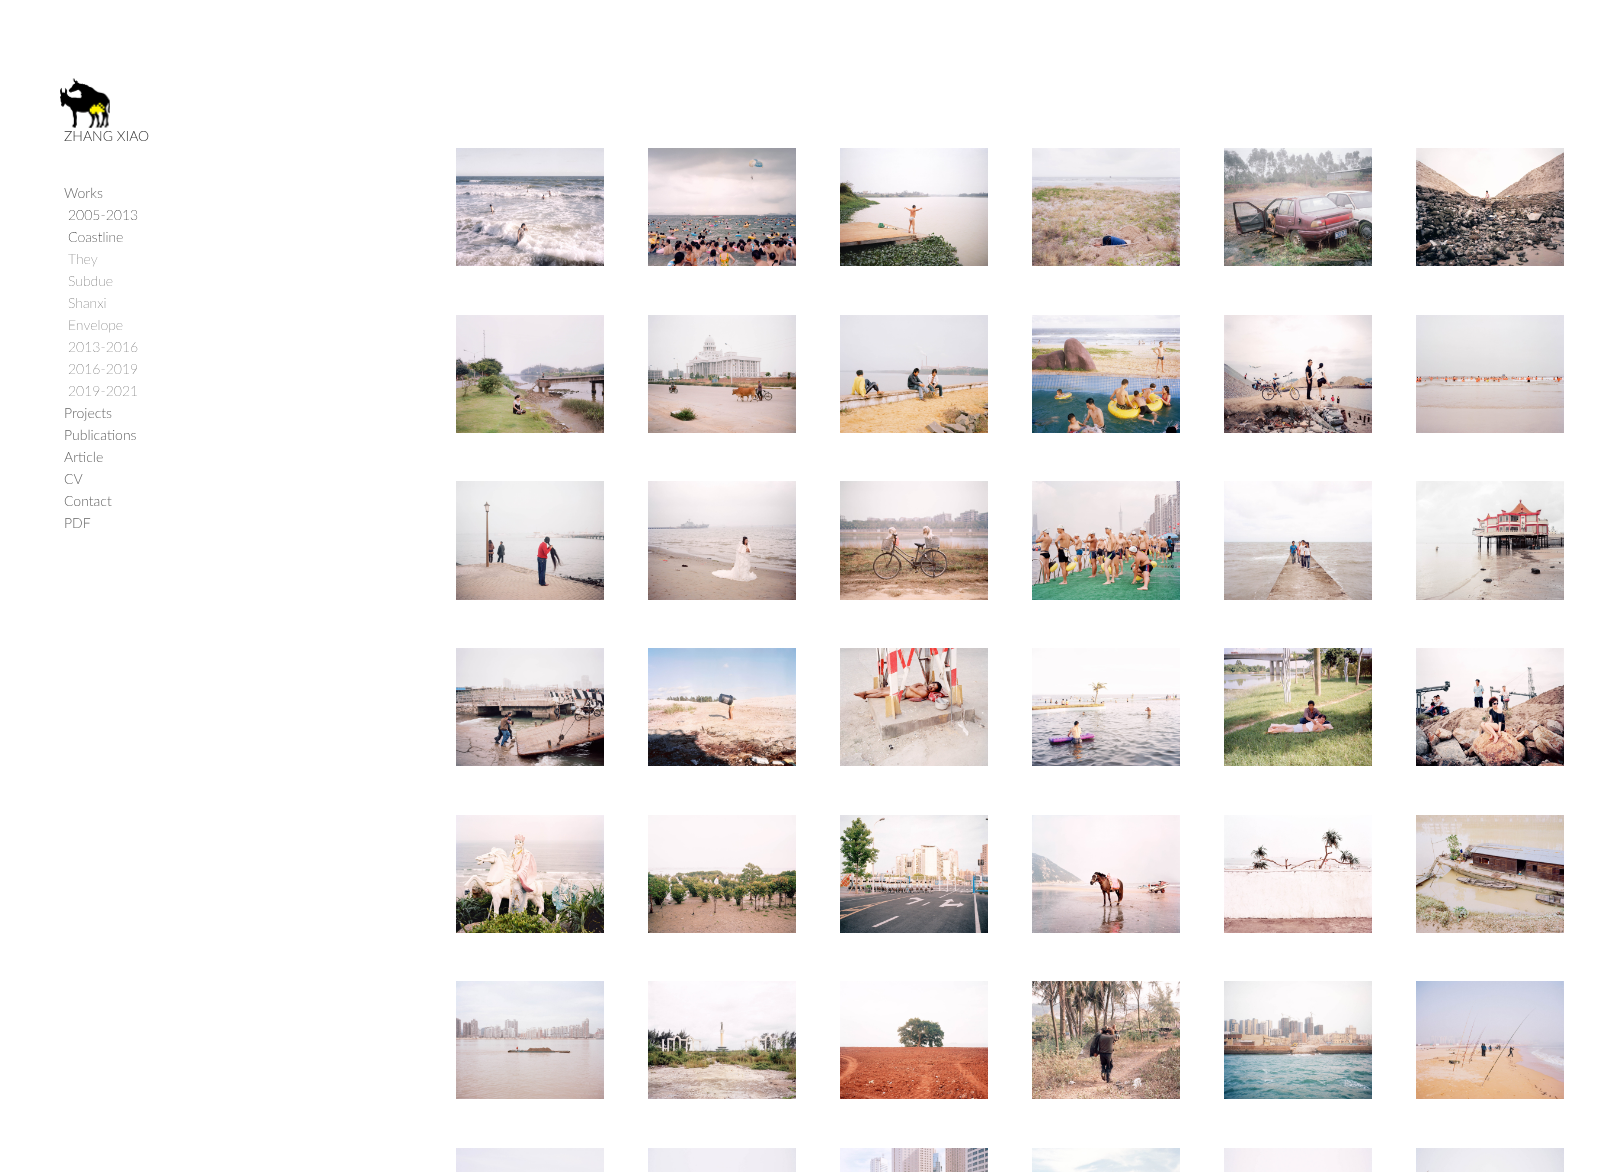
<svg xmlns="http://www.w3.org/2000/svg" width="1606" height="1172">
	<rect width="100%" height="100%" fill="#FFFFFF" />
	<image x="60" y="78" width="50" height="50" href="assets/img1.png" />
	<text x="64" y="141" font-family="Lato" font-size="14" font-weight="300" fill="#333333">ZHANG XIAO</text>
	<text x="64" y="198" font-family="Lato" font-size="14" font-weight="300" fill="#666666">Works</text>
	<g font-family="Lato" font-size="14" font-weight="100" fill="#000000">
		<text x="68" y="220">2005-2013</text>
		<text x="68" y="242">Coastline</text>
	</g>
	<g font-family="Lato" font-size="14" font-weight="100" fill="#666666">
		<text x="68" y="264">They</text>
		<text x="68" y="286">Subdue</text>
		<text x="68" y="308">Shanxi</text>
		<text x="68" y="330">Envelope</text>
		<text x="68" y="352">2013-2016</text>
		<text x="68" y="374">2016-2019</text>
		<text x="68" y="396">2019-2021</text>
	</g>
	<g font-family="Lato" font-size="14" font-weight="300" fill="#666666">
		<text x="64" y="418">Projects</text>
		<text x="64" y="440">Publications</text>
		<text x="64" y="462">Article</text>
		<text x="64" y="484">CV</text>
		<text x="64" y="506">Contact</text>
		<text x="64" y="528">PDF</text>
	</g>
	<image x="456" y="148" width="148" height="118" href="assets/img2.png" />
	<image x="648" y="148" width="148" height="118" href="assets/img3.png" />
	<image x="840" y="148" width="148" height="118" href="assets/img4.png" />
	<image x="1032" y="148" width="148" height="118" href="assets/img5.png" />
	<image x="1224" y="148" width="148" height="118" href="assets/img6.png" />
	<image x="1416" y="148" width="148" height="118" href="assets/img7.png" />
	<image x="456" y="315" width="148" height="118" href="assets/img8.png" />
	<image x="648" y="315" width="148" height="118" href="assets/img9.png" />
	<image x="840" y="315" width="148" height="118" href="assets/img10.png" />
	<image x="1032" y="315" width="148" height="118" href="assets/img11.png" />
	<image x="1224" y="315" width="148" height="118" href="assets/img12.png" />
	<image x="1416" y="315" width="148" height="118" href="assets/img13.png" />
	<image x="456" y="481" width="148" height="119" href="assets/img14.png" />
	<image x="648" y="481" width="148" height="119" href="assets/img15.png" />
	<image x="840" y="481" width="148" height="119" href="assets/img16.png" />
	<image x="1032" y="481" width="148" height="119" href="assets/img17.png" />
	<image x="1224" y="481" width="148" height="119" href="assets/img18.png" />
	<image x="1416" y="481" width="148" height="119" href="assets/img19.png" />
	<image x="456" y="648" width="148" height="118" href="assets/img20.png" />
	<image x="648" y="648" width="148" height="118" href="assets/img21.png" />
	<image x="840" y="648" width="148" height="118" href="assets/img22.png" />
	<image x="1032" y="648" width="148" height="118" href="assets/img23.png" />
	<image x="1224" y="648" width="148" height="118" href="assets/img24.png" />
	<image x="1416" y="648" width="148" height="118" href="assets/img25.png" />
	<image x="456" y="815" width="148" height="118" href="assets/img26.png" />
	<image x="648" y="815" width="148" height="118" href="assets/img27.png" />
	<image x="840" y="815" width="148" height="118" href="assets/img28.png" />
	<image x="1032" y="815" width="148" height="118" href="assets/img29.png" />
	<image x="1224" y="815" width="148" height="118" href="assets/img30.png" />
	<image x="1416" y="815" width="148" height="118" href="assets/img31.png" />
	<image x="456" y="981" width="148" height="118" href="assets/img32.png" />
	<image x="648" y="981" width="148" height="118" href="assets/img33.png" />
	<image x="840" y="981" width="148" height="118" href="assets/img34.png" />
	<image x="1032" y="981" width="148" height="118" href="assets/img35.png" />
	<image x="1224" y="981" width="148" height="118" href="assets/img36.png" />
	<image x="1416" y="981" width="148" height="118" href="assets/img37.png" />
	<image x="456" y="1148" width="148" height="24" href="assets/img38.png" />
	<image x="648" y="1148" width="148" height="24" href="assets/img39.png" />
	<image x="840" y="1148" width="148" height="24" href="assets/img40.png" />
	<image x="1032" y="1148" width="148" height="24" href="assets/img41.png" />
	<image x="1224" y="1148" width="148" height="24" href="assets/img42.png" />
	<image x="1416" y="1148" width="148" height="24" href="assets/img43.png" />
</svg>
